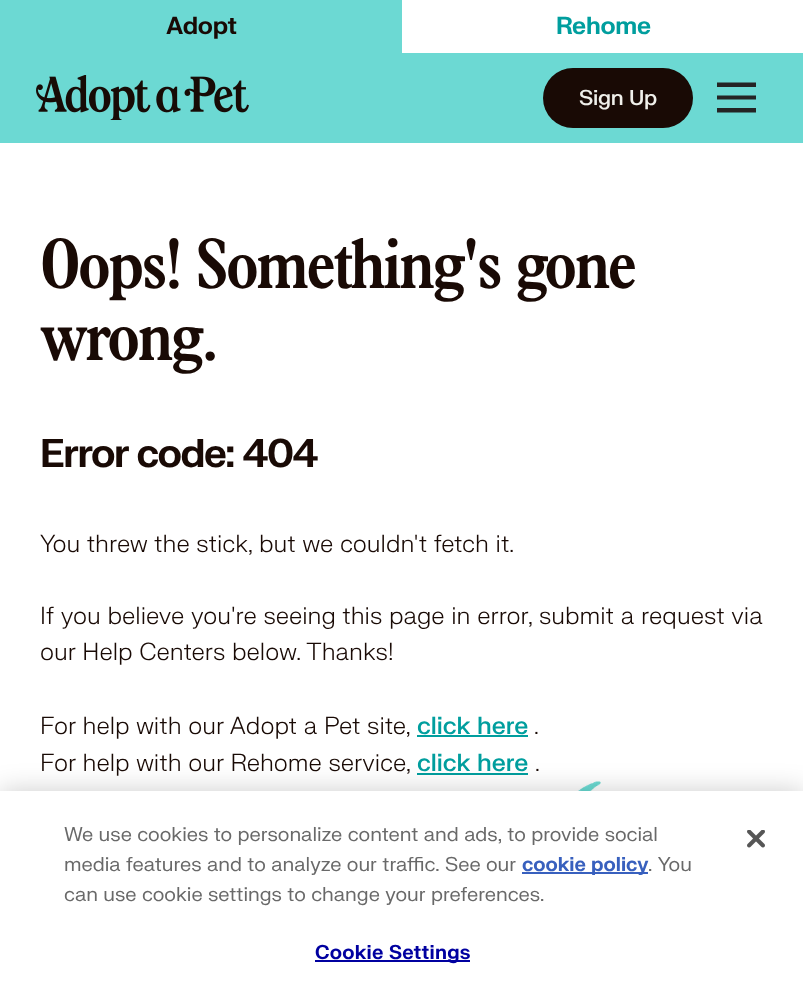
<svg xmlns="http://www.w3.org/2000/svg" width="803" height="1007">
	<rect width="100%" height="100%" fill="#FFFFFF" />
	<rect x="0" y="0" width="402" height="53" fill="#6CD9D3" />
	<text x="166" y="34" font-family="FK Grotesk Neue" font-size="24" font-weight="700" letter-spacing="-0.25" fill="#190A05">Adopt</text>
	<text x="556" y="34" font-family="FK Grotesk Neue" font-size="24" font-weight="700" letter-spacing="-0.25" fill="#009E9E">Rehome</text>
	<rect x="0" y="53" width="803" height="90" fill="#6CD9D3" />
	<image x="36" y="75" width="213" height="45" href="assets/img1.png" />
	<rect x="543" y="68" width="150" height="60" rx="30" fill="#190A05" />
	<text x="579" y="105" font-family="FK Grotesk Neue" font-size="21" font-weight="500" letter-spacing="-0.25" fill="#F0F0EB">Sign Up</text>
	<path d="M717 112.5H756V108H717ZM717 99.5H756V95.5H717ZM717 87H756V82.5H717Z" fill="#242424" fill-rule="evenodd" />
	<g font-family="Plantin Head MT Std" font-size="72" font-weight="500" letter-spacing="-2.9" fill="#190A05">
		<text x="40" y="288">Oops! Something's gone</text>
		<text x="40" y="360">wrong.</text>
	</g>
	<text x="40" y="467" font-family="FK Grotesk Neue" font-size="39" font-weight="700" letter-spacing="-1.5" fill="#190A05">Error code: 404</text>
	<g font-family="FK Grotesk Neue" font-size="24" font-weight="300" fill="#190A05">
		<text x="40" y="552">You threw the stick, but we couldn't fetch it.</text>
		<text x="40" y="624">If you believe you're seeing this page in error, submit a request via</text>
		<text x="40" y="660">our Help Centers below. Thanks!</text>
		<text x="40" y="734">For help with our Adopt a Pet site,</text>
	</g>
	<text x="417" y="734" font-family="FK Grotesk Neue" font-size="24" font-weight="500" fill="#009E9E">click here</text>
	<rect x="417" y="735" width="111" height="2" fill="#009E9E" />
	<g font-family="FK Grotesk Neue" font-size="24" font-weight="300" fill="#190A05">
		<text x="534" y="734">.</text>
		<text x="40" y="771">For help with our Rehome service,</text>
	</g>
	<text x="417" y="771" font-family="FK Grotesk Neue" font-size="24" font-weight="500" fill="#009E9E">click here</text>
	<rect x="417" y="773" width="111" height="2" fill="#009E9E" />
	<text x="535" y="771" font-family="FK Grotesk Neue" font-size="24" font-weight="300" fill="#190A05">.</text>
	<image x="578" y="781" width="23" height="10" href="assets/img2.png" />
	<rect x="0" y="791" width="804" height="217" fill="#000000" fill-opacity="0.2" filter="blur(13.5px)" />
	<rect x="0" y="791" width="803" height="216" fill="#FFFFFF" />
	<g font-family="FK Grotesk Neue" font-size="19.5" fill="#696969">
		<text x="64" y="841">We use cookies to personalize content and ads, to provide social</text>
		<text x="64" y="871">media features and to analyze our traffic. See our</text>
	</g>
	<rect x="522" y="872" width="126" height="2" fill="#3860BE" />
	<text x="522" y="871" font-family="FK Grotesk Neue" font-size="19.5" font-weight="700" fill="#3860BE">cookie policy</text>
	<g font-family="FK Grotesk Neue" font-size="19.5" fill="#696969">
		<text x="648" y="871">. You</text>
		<text x="64" y="901">can use cookie settings to change your preferences.</text>
	</g>
	<rect x="315" y="960" width="155" height="2" fill="#0000A0" />
	<text x="315" y="959" font-family="FK Grotesk Neue" font-size="19.5" font-weight="700" letter-spacing="0.25" fill="#0000A0">Cookie Settings</text>
	<image x="747" y="830" width="18" height="18" href="assets/img3.png" />
</svg>
